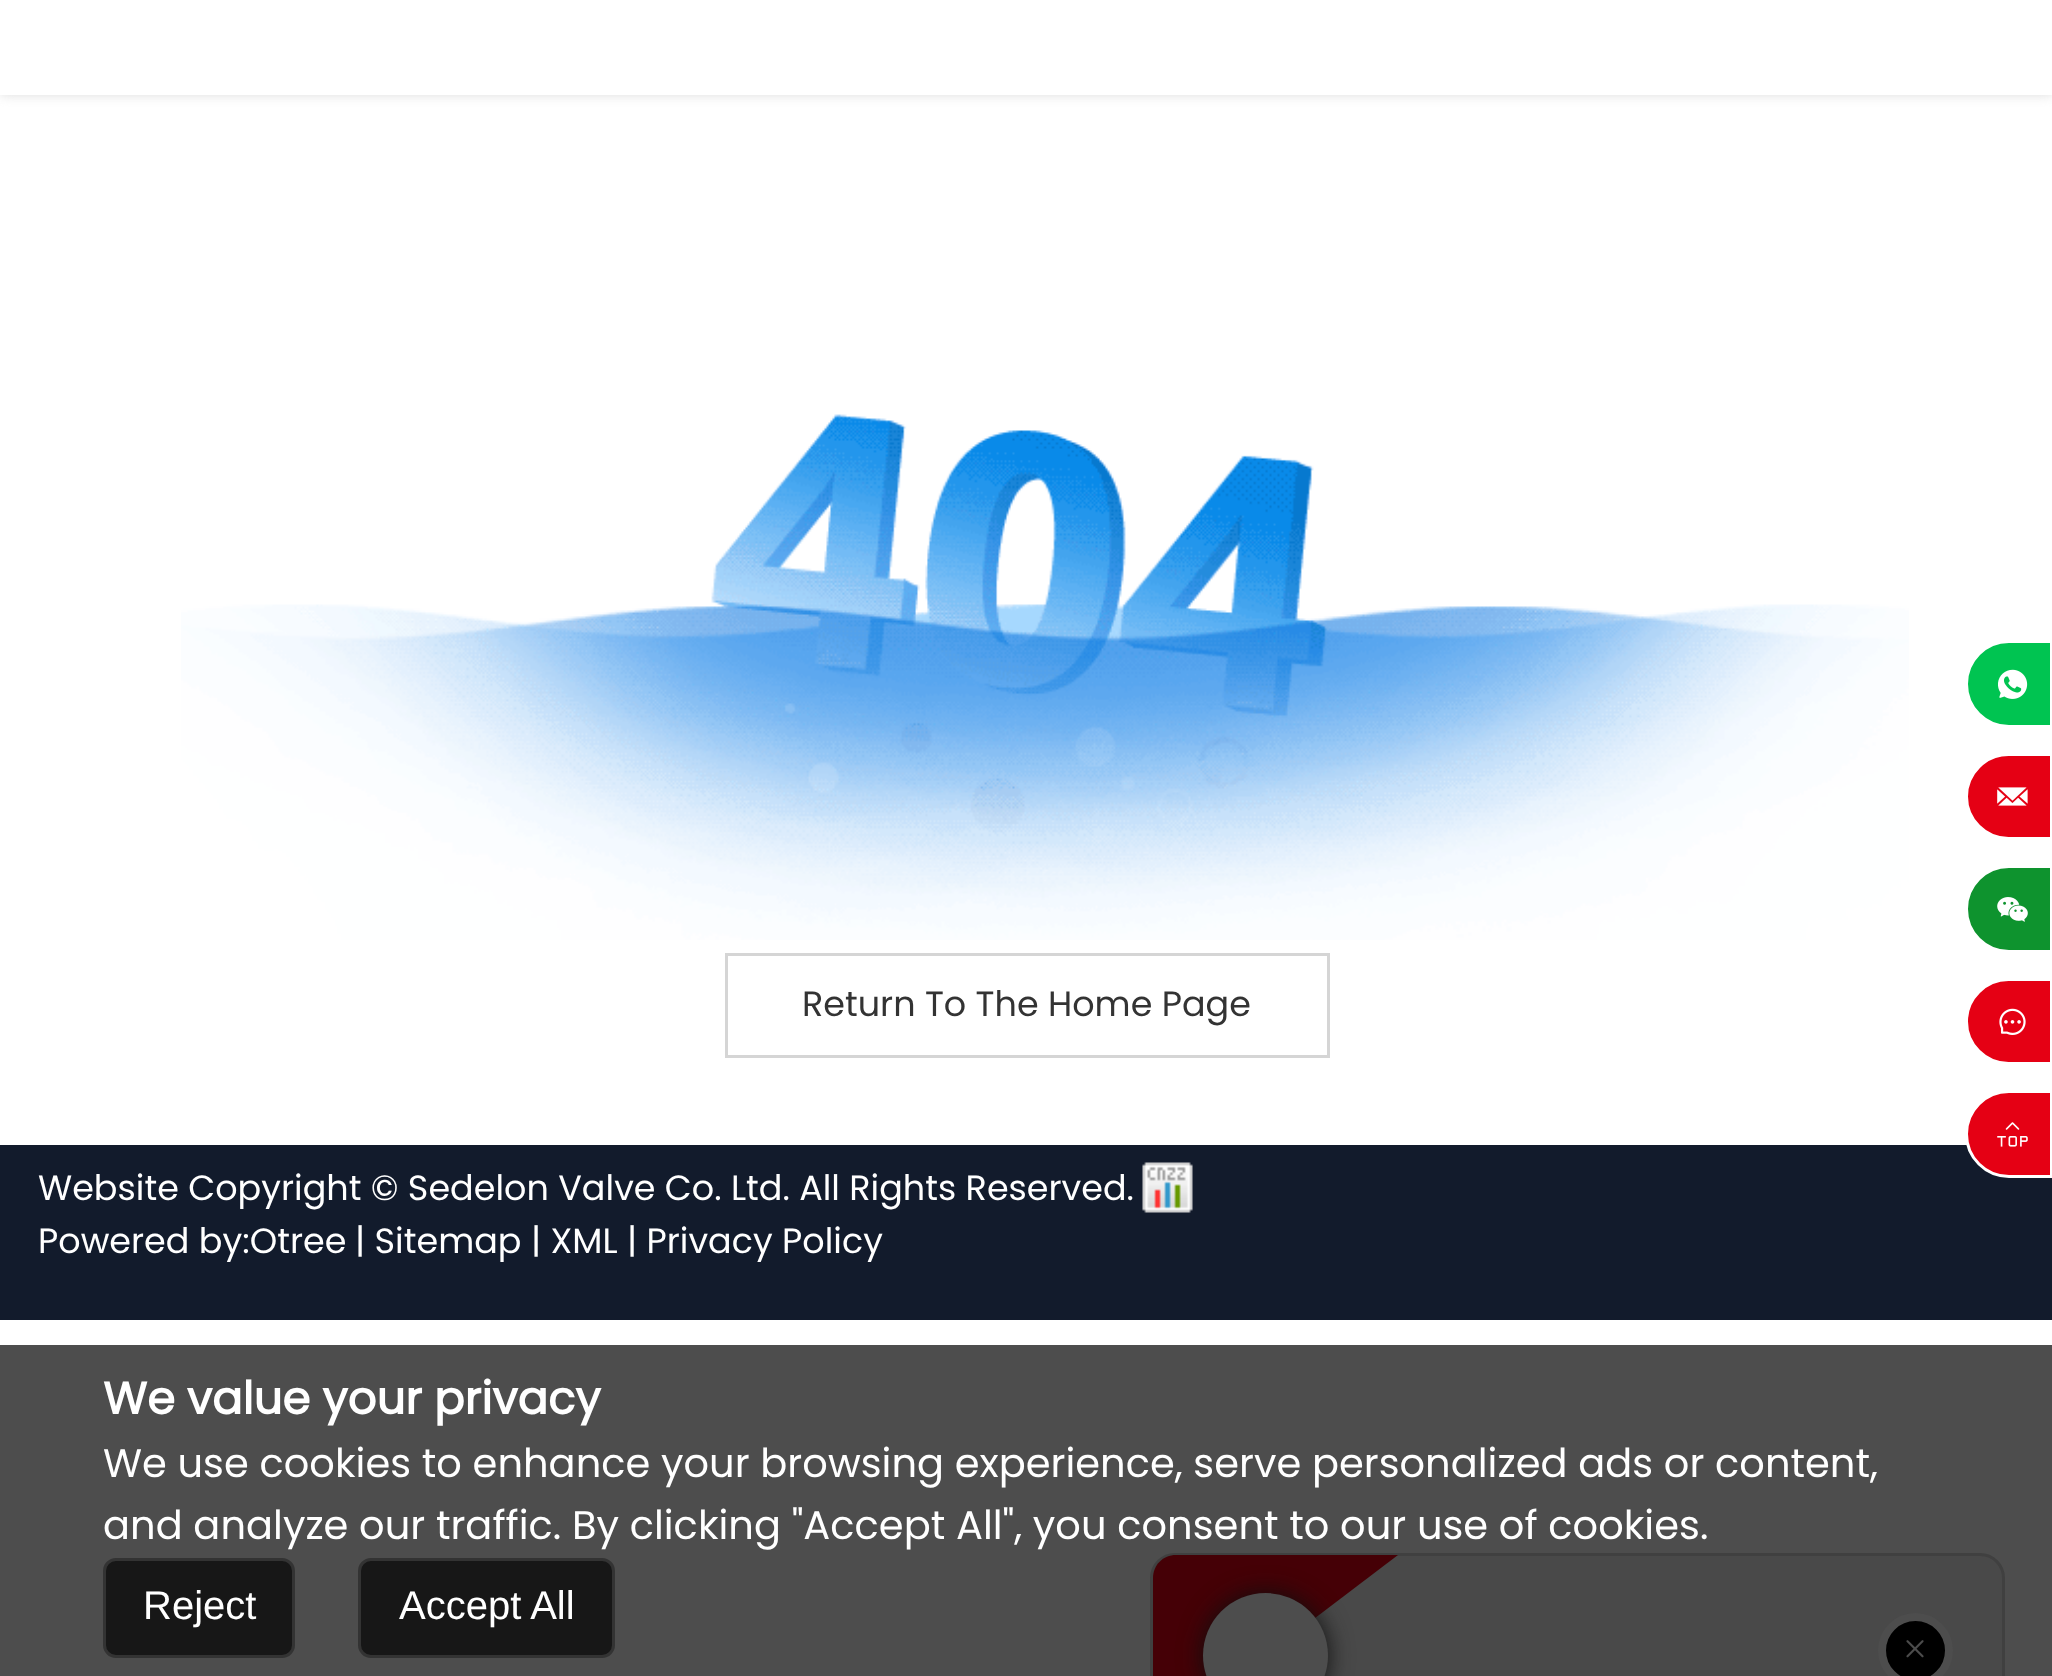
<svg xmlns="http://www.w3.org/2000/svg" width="2052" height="1676">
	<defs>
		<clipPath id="clip1"><rect x="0" y="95" width="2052" height="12" /></clipPath>
	</defs>
	<rect width="100%" height="100%" fill="#FFFFFF" />
	<rect x="0" y="1345" width="2052" height="331" fill="#4D4D4D" />
	<g clip-path="url(#clip1)">
		<rect x="0" y="0" width="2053" height="95" fill="#DDDDDD" filter="blur(6px)" />
	</g>
	<image x="181" y="414" width="1728" height="526" href="assets/img1.png" />
	<rect x="726.5" y="954.5" width="602" height="102" fill="none" stroke="#D5D5D5" stroke-width="3" />
	<text x="802" y="1016" font-family="Poppins" font-size="35" fill="#333333">Return To The Home Page</text>
	<path d="M2009 641.5H2051.5V726.5H2009C1985.5 726.5 1966.5 707.5 1966.5 684C1966.5 660.5 1985.5 641.5 2009 641.5Z" fill="#00C451" stroke="#FFFFFF" stroke-width="3" />
	<image x="1998" y="669" width="30" height="30" href="assets/img2.png" />
	<path d="M2008.5 754.5H2051.5V838.5H2008.5C1985.5 838.5 1966.5 819.5 1966.5 796.5C1966.5 773.5 1985.5 754.5 2008.5 754.5Z" fill="#E50014" stroke="#FFFFFF" stroke-width="3" />
	<image x="1997" y="787" width="31" height="19" href="assets/img3.png" />
	<path d="M2009 866.5H2051.5V951.5H2009C1985.5 951.5 1966.5 932.5 1966.5 909C1966.5 885.5 1985.5 866.5 2009 866.5Z" fill="#0E932E" stroke="#FFFFFF" stroke-width="3" />
	<image x="1997" y="897" width="31" height="25" href="assets/img4.png" />
	<path d="M2008.5 979.5H2051.5V1063.5H2008.5C1985.5 1063.5 1966.5 1044.5 1966.5 1021.5C1966.5 998.5 1985.5 979.5 2008.5 979.5Z" fill="#E50014" stroke="#FFFFFF" stroke-width="3" />
	<image x="1999" y="1008" width="27" height="27" href="assets/img5.png" />
	<rect x="0" y="1145" width="2052" height="175" fill="#121B2C" />
	<path d="M2009 1091.5H2051.5V1176.5H2009C1985.5 1176.5 1966.5 1157.5 1966.5 1134C1966.5 1110.5 1985.5 1091.5 2009 1091.5Z" fill="#E50014" stroke="#FFFFFF" stroke-width="3" />
	<image x="1997" y="1122" width="31" height="25" href="assets/img6.png" />
	<text x="38" y="1200" font-family="Poppins" font-size="35" fill="#FFFFFF">Website Copyright © Sedelon Valve Co. Ltd. All Rights Reserved.</text>
	<image x="1142" y="1162" width="51" height="51" href="assets/img7.png" />
	<g font-family="Poppins" font-size="35" fill="#FFFFFF">
		<text x="38" y="1253">Powered by:Otree</text>
		<text x="355" y="1253">| Sitemap</text>
		<text x="531" y="1253">| XML</text>
		<text x="627" y="1253">| Privacy Policy</text>
	</g>
	<text x="103" y="1414" font-family="Poppins" font-size="45" font-weight="700" fill="#FFFFFF">We value your privacy</text>
	<g font-family="Poppins" font-size="40" fill="#FFFFFF">
		<text x="103" y="1477">We use cookies to enhance your browsing experience, serve personalized ads or content,</text>
		<text x="103" y="1539">and analyze our traffic. By clicking "Accept All", you consent to our use of cookies.</text>
	</g>
	<rect x="104.5" y="1559.5" width="189" height="97" rx="11.5" fill="#171717" stroke="#333333" stroke-width="3" />
	<text x="143" y="1619" font-family="Liberation Sans" font-size="40" fill="#FFFFFF">Reject</text>
	<rect x="359.5" y="1559.5" width="254" height="97" rx="11.5" fill="#171717" stroke="#333333" stroke-width="3" />
	<text x="399" y="1619" font-family="Liberation Sans" font-size="40" fill="#FFFFFF">Accept All</text>
	<rect x="1151.5" y="1554.5" width="852" height="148" rx="23.5" fill="#494949" stroke="#404040" stroke-width="3" />
	<path d="M1176 1555C1163 1555 1153 1565 1153 1578V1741L1398 1555Z" fill="#450006" />
	<rect x="1203" y="1593" width="125" height="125" rx="62.5" fill="#0F0F0F" filter="blur(12.5px)" />
	<circle cx="1265.5" cy="1655.5" r="62.5" fill="#4D4D4D" />
	<circle cx="1915.5" cy="1650.5" r="33.5" fill="#000000" stroke="#4D4D4D" stroke-width="8" />
	<image x="1906" y="1640" width="18" height="18" href="assets/img8.png" />
</svg>
